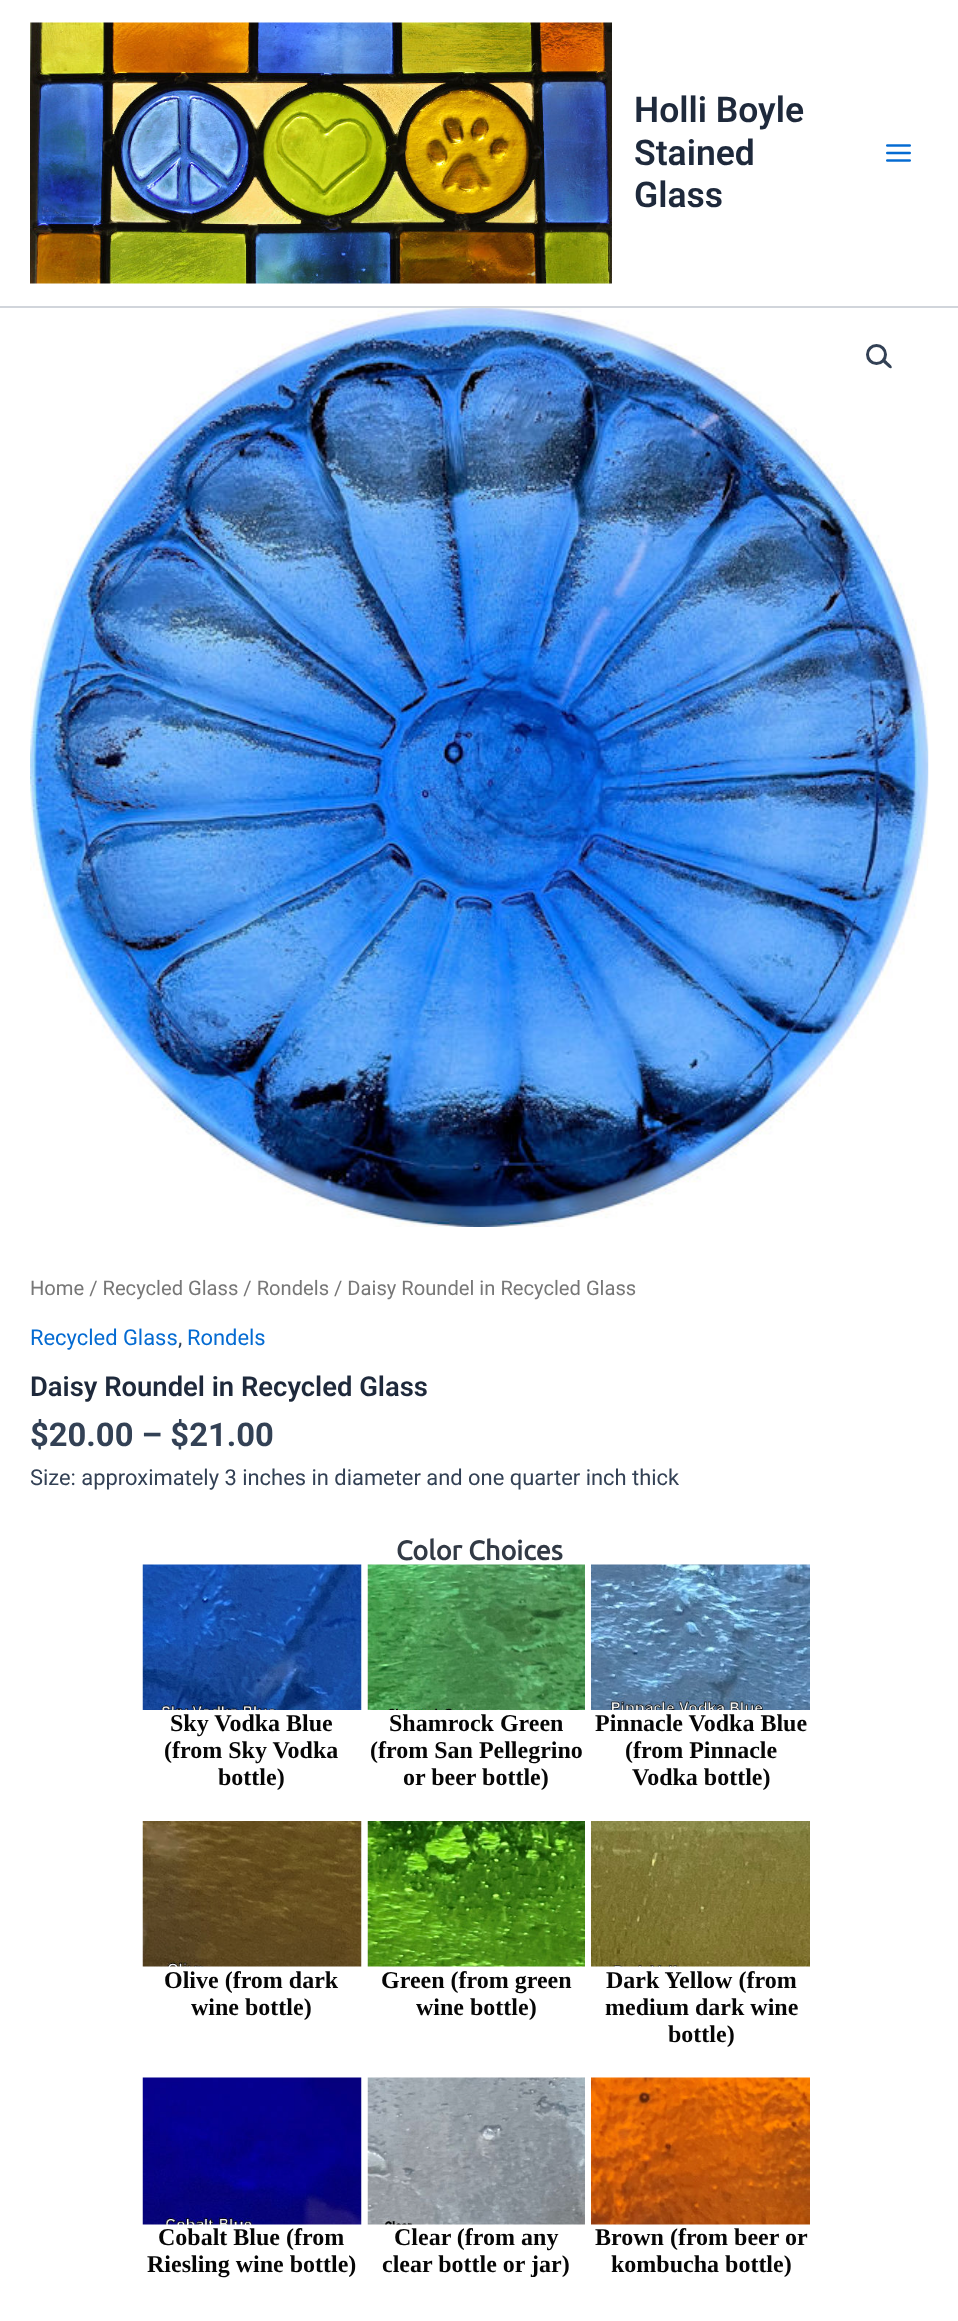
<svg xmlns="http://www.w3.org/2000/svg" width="958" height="2321">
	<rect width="100%" height="100%" fill="#FFFFFF" />
	<rect x="0" y="306" width="958" height="2" fill="#D1D5DB" />
	<image x="30" y="22" width="582" height="262" href="assets/img1.png" />
	<g font-family="Roboto" font-size="35.5" font-weight="600" fill="#1E293B">
		<text x="634" y="122">Holli Boyle</text>
		<text x="634" y="165">Stained</text>
		<text x="634" y="207">Glass</text>
	</g>
	<image x="886" y="144" width="25" height="18" href="assets/img2.png" />
	<image x="30" y="308" width="899" height="919" href="assets/img3.png" />
	<circle cx="876.5" cy="354.5" r="9" fill="none" stroke="#334155" stroke-width="3" />
	<path d="M883 359.5C884.5 358 887.5 362 888 362.5C889 363.5 893 366.5 891.5 368C889.5 369.5 887 365.5 886 365C885 364 881 361 883 359.5Z" fill="#334155" />
	<text x="30" y="1295" font-family="Roboto" font-size="20.15" fill="#777777">Home / Recycled Glass / Rondels / Daisy Roundel in Recycled Glass</text>
	<text x="30" y="1345" font-family="Roboto" font-size="21.9" fill="#046BD2">Recycled Glass</text>
	<text x="178" y="1345" font-family="Roboto" font-size="21.9" fill="#334155">,</text>
	<text x="187" y="1345" font-family="Roboto" font-size="21.9" fill="#046BD2">Rondels</text>
	<text x="30" y="1396" font-family="Roboto" font-size="27.4" font-weight="600" fill="#1E293B">Daisy Roundel in Recycled Glass</text>
	<text x="30" y="1446" font-family="Roboto" font-size="32.75" font-weight="700" fill="#334155">$20.00 – $21.00</text>
	<text x="30" y="1485" font-family="Roboto" font-size="21.9" fill="#334155">Size: approximately 3 inches in diameter and one quarter inch thick</text>
	<text x="396" y="1560" font-family="Ubuntu" font-size="27" font-weight="700" fill="#323A45">Color Choices</text>
	<image x="142" y="1564" width="220" height="146" href="assets/img4.png" />
	<g font-family="Liberation Serif" font-size="24" font-weight="700" fill="#060606">
		<text x="170" y="1731">Sky Vodka Blue</text>
		<text x="164" y="1758">(from Sky Vodka</text>
		<text x="218" y="1785">bottle)</text>
	</g>
	<image x="367" y="1564" width="218" height="146" href="assets/img5.png" />
	<g font-family="Liberation Serif" font-size="24" font-weight="700" fill="#060606">
		<text x="389" y="1731">Shamrock Green</text>
		<text x="370" y="1758">(from San Pellegrino</text>
		<text x="403" y="1785">or beer bottle)</text>
	</g>
	<image x="591" y="1564" width="219" height="146" href="assets/img6.png" />
	<g font-family="Liberation Serif" font-size="24" font-weight="700" fill="#060606">
		<text x="595" y="1731">Pinnacle Vodka Blue</text>
		<text x="625" y="1758">(from Pinnacle</text>
		<text x="632" y="1785">Vodka bottle)</text>
	</g>
	<image x="142" y="1821" width="220" height="146" href="assets/img7.png" />
	<g font-family="Liberation Serif" font-size="24" font-weight="700" fill="#060606">
		<text x="164" y="1988">Olive (from dark</text>
		<text x="191" y="2015">wine bottle)</text>
	</g>
	<image x="367" y="1821" width="218" height="146" href="assets/img8.png" />
	<g font-family="Liberation Serif" font-size="24" font-weight="700" fill="#060606">
		<text x="381" y="1988">Green (from green</text>
		<text x="416" y="2015">wine bottle)</text>
	</g>
	<image x="591" y="1821" width="219" height="146" href="assets/img9.png" />
	<g font-family="Liberation Serif" font-size="24" font-weight="700" fill="#060606">
		<text x="606" y="1988">Dark Yellow (from</text>
		<text x="605" y="2015">medium dark wine</text>
		<text x="668" y="2042">bottle)</text>
	</g>
	<image x="142" y="2077" width="220" height="148" href="assets/img10.png" />
	<g font-family="Liberation Serif" font-size="24" font-weight="700" fill="#060606">
		<text x="158" y="2245">Cobalt Blue (from</text>
		<text x="147" y="2272">Riesling wine bottle)</text>
	</g>
	<image x="367" y="2077" width="218" height="148" href="assets/img11.png" />
	<g font-family="Liberation Serif" font-size="24" font-weight="700" fill="#060606">
		<text x="394" y="2245">Clear (from any</text>
		<text x="382" y="2272">clear bottle or jar)</text>
	</g>
	<image x="591" y="2077" width="219" height="148" href="assets/img12.png" />
	<g font-family="Liberation Serif" font-size="24" font-weight="700" fill="#060606">
		<text x="595" y="2245">Brown (from beer or</text>
		<text x="611" y="2272">kombucha bottle)</text>
	</g>
</svg>
